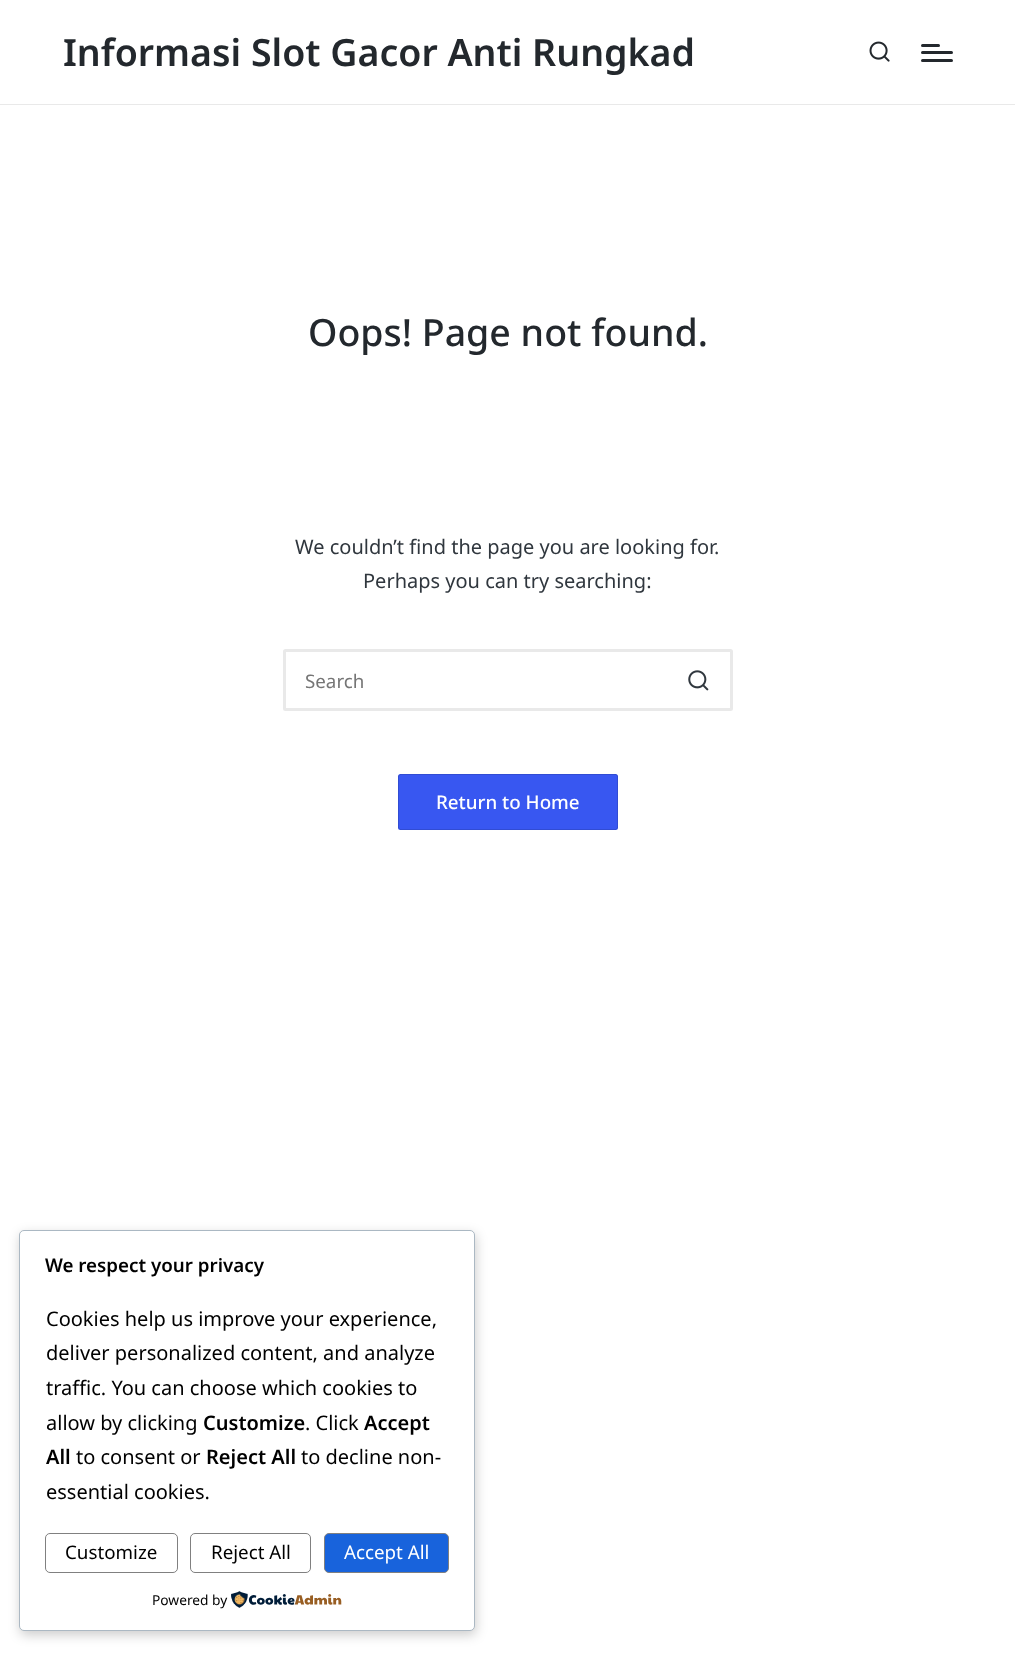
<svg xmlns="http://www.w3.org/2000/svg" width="1015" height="1656">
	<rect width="100%" height="100%" fill="#FFFFFF" />
	<rect x="0" y="104" width="1015" height="1" fill="#E9E9E9" />
	<text x="63" y="66" font-family="Noto Sans" font-size="37.5" font-weight="600" fill="#23282D">Informasi Slot Gacor Anti Rungkad</text>
	<image x="869" y="41" width="21" height="21" href="assets/img1.png" />
	<rect x="921" y="51" width="32" height="3" rx="1.5" fill="#23282D" />
	<rect x="921" y="44" width="19" height="3" rx="1.5" fill="#23282D" />
	<rect x="921" y="59" width="32" height="3" rx="1.5" fill="#23282D" />
	<text x="308" y="346" font-family="Noto Sans" font-size="37.5" font-weight="500" fill="#23282D">Oops! Page not found.</text>
	<g font-family="Noto Sans" font-size="20" fill="#30373E">
		<text x="295" y="554">We couldn’t find the page you are looking for.</text>
		<text x="363" y="588">Perhaps you can try searching:</text>
	</g>
	<rect x="284.5" y="650.5" width="447" height="59" rx="1" fill="none" stroke="#E9E9E9" stroke-width="3" />
	<text x="305" y="688" font-family="Noto Sans" font-size="18.75" fill="#757575">Search</text>
	<image x="688" y="670" width="21" height="21" href="assets/img2.png" />
	<rect x="398" y="774" width="220" height="56" rx="2.5" fill="#3857F1" />
	<rect x="398.5" y="774.5" width="219" height="55" rx="2" fill="none" stroke="#000000" stroke-opacity="0.12" />
	<text x="436" y="809" font-family="Noto Sans" font-size="18.75" font-weight="500" fill="#FFFFFF">Return to Home</text>
	<rect x="20" y="1234" width="456" height="401" rx="5" fill="#000000" fill-opacity="0.2" filter="blur(6px)" />
	<rect x="19.5" y="1230.5" width="455" height="400" rx="4.5" fill="#FFFFFF" stroke="#ABB8C3" />
	<text x="45" y="1272" font-family="'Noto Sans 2'" font-size="18.75" font-weight="600" fill="#000000">We respect your privacy</text>
	<g font-family="Noto Sans" font-size="20" fill="#000000">
		<text x="46" y="1326">Cookies help us improve your experience,</text>
		<text x="46" y="1360">deliver personalized content, and analyze</text>
		<text x="46" y="1395">traffic. You can choose which cookies to</text>
		<text x="46" y="1430">allow by clicking</text>
	</g>
	<text x="203" y="1430" font-family="Noto Sans" font-size="20" font-weight="600" fill="#000000">Customize</text>
	<text x="305" y="1430" font-family="Noto Sans" font-size="20" fill="#000000">. Click</text>
	<g font-family="Noto Sans" font-size="20" font-weight="600" fill="#000000">
		<text x="364" y="1430">Accept</text>
		<text x="46" y="1464">All</text>
	</g>
	<text x="76" y="1464" font-family="Noto Sans" font-size="20" fill="#000000">to consent or</text>
	<text x="206" y="1464" font-family="Noto Sans" font-size="20" font-weight="600" fill="#000000">Reject All</text>
	<g font-family="Noto Sans" font-size="20" fill="#000000">
		<text x="301" y="1464">to decline non-</text>
		<text x="46" y="1499">essential cookies.</text>
	</g>
	<rect x="45.5" y="1533.5" width="132" height="39" rx="4.5" fill="none" stroke="#808080" />
	<text x="65" y="1559" font-family="Noto Sans" font-size="18.75" fill="#000000">Customize</text>
	<rect x="190.5" y="1533.5" width="120" height="39" rx="4.5" fill="none" stroke="#808080" />
	<text x="211" y="1559" font-family="Noto Sans" font-size="18.75" fill="#000000">Reject All</text>
	<rect x="324.5" y="1533.5" width="124" height="39" rx="4.5" fill="#1863DC" stroke="#808080" />
	<text x="344" y="1559" font-family="Noto Sans" font-size="18.75" fill="#FFFFFF">Accept All</text>
	<text x="152" y="1605" font-family="Noto Sans" font-size="13.75" fill="#000000">Powered by</text>
	<image x="231" y="1591" width="111" height="17" href="assets/img3.png" />
</svg>
